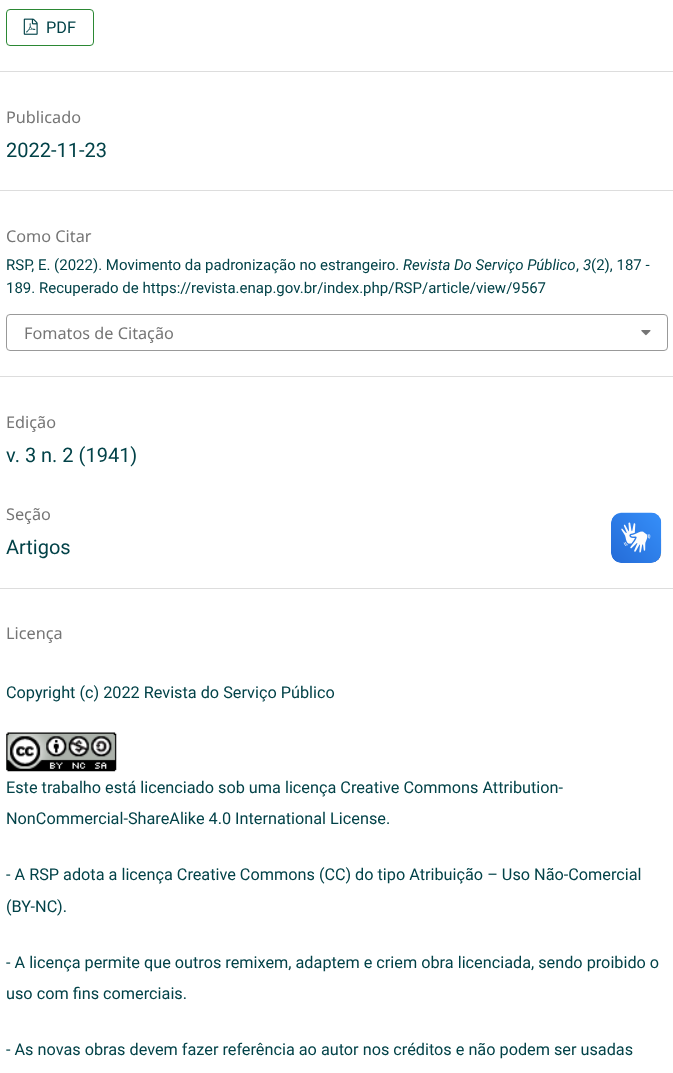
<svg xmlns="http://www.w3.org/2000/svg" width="673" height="1073">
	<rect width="100%" height="100%" fill="#FFFFFF" />
	<rect x="0" y="71" width="673" height="1" fill="#DDDDDD" />
	<rect x="6.5" y="9.5" width="87" height="36" rx="3.5" fill="none" stroke="#2B8834" />
	<image x="23" y="18" width="15" height="17" href="assets/img1.png" />
	<text x="46" y="33" font-family="Roboto" font-size="16.25" fill="#024248">PDF</text>
	<rect x="0" y="190" width="673" height="1" fill="#DDDDDD" />
	<text x="6" y="123" font-family="Noto Sans" font-size="16.25" fill="#757575">Publicado</text>
	<text x="6" y="157" font-family="Roboto" font-size="20" fill="#024248">2022-11-23</text>
	<rect x="0" y="376" width="673" height="1" fill="#DDDDDD" />
	<text x="6" y="242" font-family="Noto Sans" font-size="16.25" fill="#757575">Como Citar</text>
	<text x="6" y="270" font-family="Roboto" font-size="15" fill="#024248">RSP, E. (2022). Movimento da padronização no estrangeiro.</text>
	<text x="403" y="270" font-family="Roboto" font-size="15" font-style="italic" fill="#024248">Revista Do Serviço Público</text>
	<text x="576" y="270" font-family="Roboto" font-size="15" fill="#024248">,</text>
	<text x="583" y="270" font-family="Roboto" font-size="15" font-style="italic" fill="#024248">3</text>
	<g font-family="Roboto" font-size="15" fill="#024248">
		<text x="591" y="270">(2), 187 -</text>
		<text x="6" y="293">189. Recuperado de https://revista.enap.gov.br/index.php/RSP/article/view/9567</text>
	</g>
	<rect x="6.5" y="314.5" width="661" height="36" rx="3.5" fill="none" stroke="#999999" />
	<text x="24" y="339" font-family="Noto Sans" font-size="16.25" fill="#757575">Fomatos de Citação</text>
	<image x="641" y="330" width="10" height="6" href="assets/img2.png" />
	<rect x="0" y="588" width="673" height="1" fill="#DDDDDD" />
	<text x="6" y="428" font-family="Noto Sans" font-size="16.25" fill="#757575">Edição</text>
	<text x="6" y="462" font-family="Roboto" font-size="20" fill="#024248">v. 3 n. 2 (1941)</text>
	<text x="6" y="520" font-family="Noto Sans" font-size="16.25" fill="#757575">Seção</text>
	<text x="6" y="554" font-family="Roboto" font-size="20" fill="#024248">Artigos</text>
	<text x="6" y="639" font-family="Noto Sans" font-size="16.25" fill="#757575">Licença</text>
	<text x="6" y="698" font-family="Roboto" font-size="16.25" fill="#024248">Copyright (c) 2022 Revista do Serviço Público</text>
	<image x="6" y="732" width="111" height="40" href="assets/img3.png" />
	<g font-family="Roboto" font-size="16.25" fill="#024248">
		<text x="6" y="793">Este trabalho está licenciado sob uma licença Creative Commons Attribution-</text>
		<text x="6" y="824">NonCommercial-ShareAlike 4.0 International License.</text>
		<text x="6" y="880">- A RSP adota a licença Creative Commons (CC) do tipo Atribuição – Uso Não-Comercial</text>
		<text x="6" y="912">(BY-NC).</text>
		<text x="6" y="968">- A licença permite que outros remixem, adaptem e criem obra licenciada, sendo proibido o</text>
		<text x="6" y="999">uso com fins comerciais.</text>
		<text x="6" y="1055">- As novas obras devem fazer referência ao autor nos créditos e não podem ser usadas</text>
	</g>
	<image x="611" y="512" width="51" height="51" href="assets/img4.png" />
	<image x="611" y="513" width="50" height="50" href="assets/img5.png" />
</svg>
